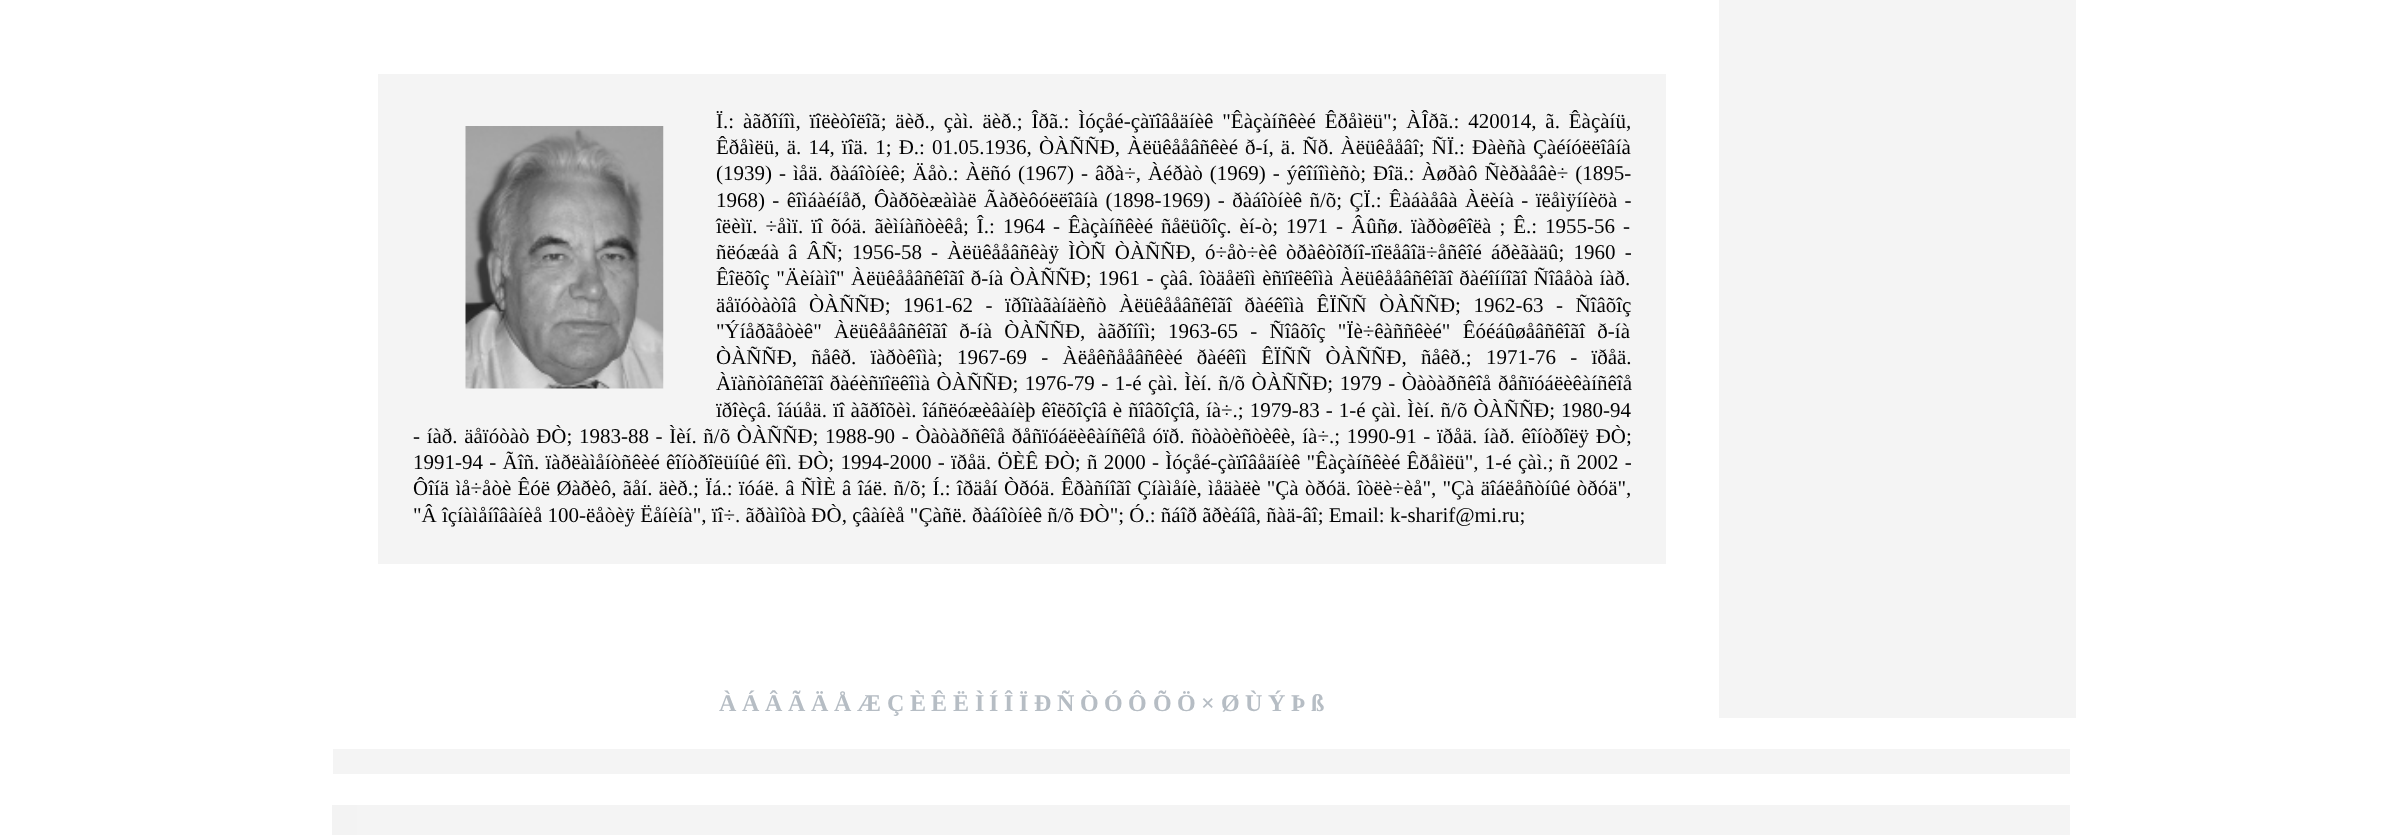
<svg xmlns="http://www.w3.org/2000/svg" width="2401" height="835">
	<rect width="100%" height="100%" fill="#FFFFFF" />
	<rect x="378" y="74" width="1288" height="490" fill="#F4F4F4" />
	<text x="716" y="128" word-spacing="3.6" font-family="Liberation Serif" font-size="21" fill="#000000">Ï.: àãðîíîì, ïîëèòîëîã; äèð., çàì. äèð.; Îðã.: Ìóçåé-çàïîâåäíèê "Êàçàíñêèé Êðåìëü"; ÀÎðã.: 420014, ã. Êàçàíü,</text>
	<image x="465" y="126" width="199" height="263" href="assets/img1.png" />
	<g font-family="Liberation Serif" font-size="21" fill="#000000">
		<text x="716" y="154" word-spacing="1.9">Êðåìëü, ä. 14, ïîä. 1; Ð.: 01.05.1936, ÒÀÑÑÐ, Àëüêååâñêèé ð-í, ä. Ñð. Àëüêååâî; ÑÏ.: Ðàèñà Çàéíóëëîâíà</text>
		<text x="716" y="180" word-spacing="1.75">(1939) - ìåä. ðàáîòíèê; Äåò.: Àëñó (1967) - âðà÷, Àéðàò (1969) - ýêîíîìèñò; Ðîä.: Àøðàô Ñèðàåâè÷ (1895-</text>
		<text x="716" y="207" word-spacing="2.1">1968) - êîìáàéíåð, Ôàðõèæàìàë Ãàðèôóëëîâíà (1898-1969) - ðàáîòíèê ñ/õ; ÇÏ.: Êàáàåâà Àëèíà - ïëåìÿííèöà -</text>
		<text x="716" y="233" word-spacing="2.75">îëèìï. ÷åìï. ïî õóä. ãèìíàñòèêå; Î.: 1964 - Êàçàíñêèé ñåëüõîç. èí-ò; 1971 - Âûñø. ïàðòøêîëà ; Ê.: 1955-56 -</text>
		<text x="716" y="259" word-spacing="3.9">ñëóæáà â ÂÑ; 1956-58 - Àëüêååâñêàÿ ÌÒÑ ÒÀÑÑÐ, ó÷åò÷èê òðàêòîðíî-ïîëåâîä÷åñêîé áðèãàäû; 1960 -</text>
		<text x="716" y="285" word-spacing="1.25">Êîëõîç "Äèíàìî" Àëüêååâñêîãî ð-íà ÒÀÑÑÐ; 1961 - çàâ. îòäåëîì èñïîëêîìà Àëüêååâñêîãî ðàéîííîãî Ñîâåòà íàð.</text>
		<text x="716" y="312" word-spacing="7.25">äåïóòàòîâ ÒÀÑÑÐ; 1961-62 - ïðîïàãàíäèñò Àëüêååâñêîãî ðàéêîìà ÊÏÑÑ ÒÀÑÑÐ; 1962-63 - Ñîâõîç</text>
		<text x="716" y="338" word-spacing="7">"Ýíåðãåòèê" Àëüêååâñêîãî ð-íà ÒÀÑÑÐ, àãðîíîì; 1963-65 - Ñîâõîç "Ïè÷êàññêèé" Êóéáûøåâñêîãî ð-íà</text>
		<text x="716" y="364" word-spacing="9">ÒÀÑÑÐ, ñåêð. ïàðòêîìà; 1967-69 - Àëåêñååâñêèé ðàéêîì ÊÏÑÑ ÒÀÑÑÐ, ñåêð.; 1971-76 - ïðåä.</text>
		<text x="716" y="390" word-spacing="1.25">Àïàñòîâñêîãî ðàéèñïîëêîìà ÒÀÑÑÐ; 1976-79 - 1-é çàì. Ìèí. ñ/õ ÒÀÑÑÐ; 1979 - Òàòàðñêîå ðåñïóáëèêàíñêîå</text>
		<text x="716" y="417" word-spacing="0.75">ïðîèçâ. îáúåä. ïî àãðîõèì. îáñëóæèâàíèþ êîëõîçîâ è ñîâõîçîâ, íà÷.; 1979-83 - 1-é çàì. Ìèí. ñ/õ ÒÀÑÑÐ; 1980-94</text>
		<text x="413" y="443" word-spacing="1.4">- íàð. äåïóòàò ÐÒ; 1983-88 - Ìèí. ñ/õ ÒÀÑÑÐ; 1988-90 - Òàòàðñêîå ðåñïóáëèêàíñêîå óïð. ñòàòèñòèêè, íà÷.; 1990-91 - ïðåä. íàð. êîíòðîëÿ ÐÒ;</text>
		<text x="413" y="469" word-spacing="1">1991-94 - Ãîñ. ïàðëàìåíòñêèé êîíòðîëüíûé êîì. ÐÒ; 1994-2000 - ïðåä. ÖÈÊ ÐÒ; ñ 2000 - Ìóçåé-çàïîâåäíèê "Êàçàíñêèé Êðåìëü", 1-é çàì.; ñ 2002 -</text>
		<text x="413" y="495" word-spacing="1">Ôîíä ìå÷åòè Êóë Øàðèô, ãåí. äèð.; Ïá.: ïóáë. â ÑÌÈ â îáë. ñ/õ; Í.: îðäåí Òðóä. Êðàñíîãî Çíàìåíè, ìåäàëè "Çà òðóä. îòëè÷èå", "Çà äîáëåñòíûé òðóä",</text>
		<text x="413" y="522">"Â îçíàìåíîâàíèå 100-ëåòèÿ Ëåíèíà", ïî÷. ãðàìîòà ÐÒ, çâàíèå "Çàñë. ðàáîòíèê ñ/õ ÐÒ"; Ó.: ñáîð ãðèáîâ, ñàä-âî; Email: k-sharif@mi.ru;</text>
	</g>
	<g font-family="Liberation Serif" font-size="24" font-weight="700" fill="#B6BDC4">
		<text x="719" y="711">À</text>
		<text x="742" y="711">Á</text>
		<text x="765" y="711">Â</text>
		<text x="788" y="711">Ã</text>
		<text x="811" y="711">Ä</text>
		<text x="834" y="711">Å</text>
		<text x="857" y="711">Æ</text>
		<text x="887" y="711">Ç</text>
		<text x="910" y="711">È</text>
		<text x="931" y="711">Ê</text>
		<text x="953" y="711">Ë</text>
		<text x="975" y="711">Ì</text>
		<text x="989" y="711">Í</text>
		<text x="1004" y="711">Î</text>
		<text x="1019" y="711">Ï</text>
		<text x="1034" y="711">Ð</text>
		<text x="1057" y="711">Ñ</text>
		<text x="1080" y="711">Ò</text>
		<text x="1104" y="711">Ó</text>
		<text x="1128" y="711">Ô</text>
		<text x="1153" y="711">Õ</text>
		<text x="1177" y="711">Ö</text>
		<text x="1201" y="711">×</text>
		<text x="1221" y="711">Ø</text>
		<text x="1245" y="711">Ù</text>
		<text x="1268" y="711">Ý</text>
		<text x="1291" y="711">Þ</text>
		<text x="1311" y="711">ß</text>
	</g>
	<rect x="1719" y="0" width="357" height="718" fill="#F4F4F4" />
	<rect x="333" y="749" width="1737" height="25" fill="#F4F4F4" />
	<rect x="332" y="805" width="25" height="30" fill="#F3F3F3" />
	<rect x="357" y="805" width="1713" height="30" fill="#F4F4F4" />
</svg>
